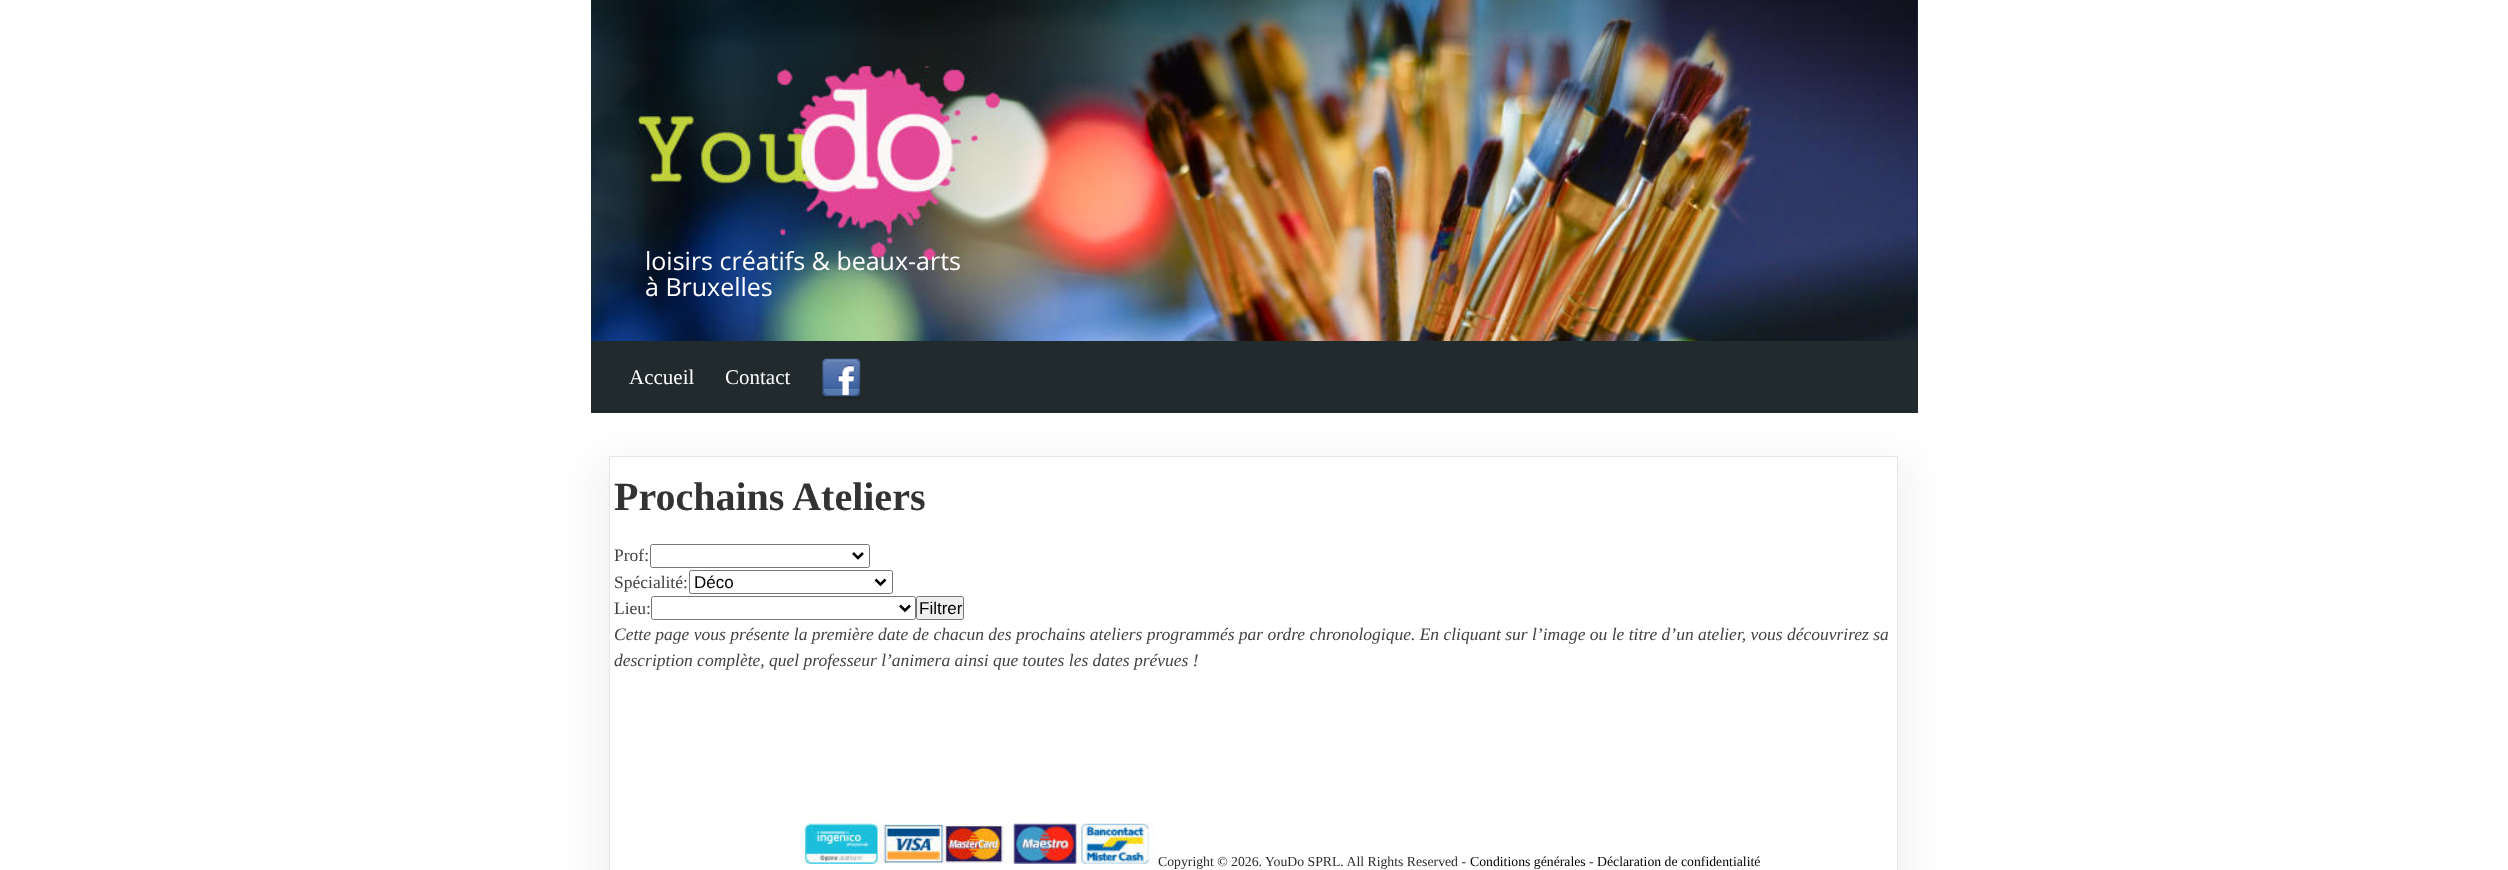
<svg xmlns="http://www.w3.org/2000/svg" width="2508" height="870">
	<rect width="100%" height="100%" fill="#FFFFFF" />
	<rect x="591" y="0" width="1327" height="413" fill="#212A2C" />
	<image x="591" y="0" width="1327" height="341" href="assets/img1.png" />
	<image x="638" y="66" width="362" height="194" href="assets/img2.png" />
	<g font-family="Open Sans" font-size="25" fill="#FFFFFF">
		<text x="645" y="270">loisirs créatifs &amp; beaux-arts</text>
		<text x="645" y="296">à Bruxelles</text>
	</g>
	<g font-family="Liberation Serif" font-size="21" fill="#FFFFFF">
		<text x="629" y="384">Accueil</text>
		<text x="725" y="384">Contact</text>
	</g>
	<image x="822" y="358" width="39" height="41" href="assets/img3.png" />
	<rect x="595" y="459" width="1316" height="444" fill="#000000" fill-opacity="0.05" filter="blur(19.5px)" />
	<rect x="609.5" y="456.5" width="1288" height="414" fill="#FFFFFF" stroke="#E6E6E6" />
	<text x="614" y="510" font-family="Liberation Serif" font-size="40" font-weight="700" fill="#333333">Prochains Ateliers</text>
	<text x="614" y="561" font-family="Liberation Serif" font-size="17.5" fill="#424242">Prof:</text>
	<rect x="650.5" y="544.5" width="219" height="23" rx="2" fill="none" stroke="#767676" />
	<path d="M853 553L858 558L863 553" fill="none" stroke="#000000" stroke-width="2.5" />
	<text x="614" y="588" font-family="Liberation Serif" font-size="17.5" fill="#424242">Spécialité:</text>
	<rect x="689.5" y="570.5" width="203" height="23" rx="2" fill="none" stroke="#767676" />
	<path d="M875.5 579.5L880.5 584.5L885.5 579.5" fill="none" stroke="#000000" stroke-width="2.5" />
	<text x="694" y="588" font-family="Liberation Sans" font-size="17" fill="#000000">Déco</text>
	<text x="614" y="614" font-family="Liberation Serif" font-size="17.5" fill="#424242">Lieu:</text>
	<rect x="651.5" y="596.5" width="264" height="23" rx="2" fill="none" stroke="#767676" />
	<path d="M900 605.5L905 610.5L910 605.5" fill="none" stroke="#000000" stroke-width="2.5" />
	<rect x="916.5" y="596.5" width="47" height="23" rx="2" fill="#EFEFEF" stroke="#767676" />
	<text x="919" y="614" font-family="Liberation Sans" font-size="17" fill="#000000">Filtrer</text>
	<g font-family="Liberation Serif" font-size="17.5" font-style="italic" fill="#424242">
		<text x="614" y="640">Cette page vous présente la première date de chacun des prochains ateliers programmés par ordre chronologique. En cliquant sur l’image ou le titre d’un atelier, vous découvrirez sa</text>
		<text x="614" y="666">description complète, quel professeur l’animera ainsi que toutes les dates prévues !</text>
	</g>
	<image x="804" y="823" width="351" height="41" href="assets/img4.png" />
	<text x="1158" y="866" font-family="Liberation Serif" font-size="13.75" fill="#2B2B2B">Copyright © 2026. YouDo SPRL. All Rights Reserved -</text>
	<text x="1470" y="866" font-family="Liberation Serif" font-size="13.75" fill="#000000">Conditions générales</text>
	<text x="1589" y="866" font-family="Liberation Serif" font-size="13.75" fill="#2B2B2B">-</text>
	<text x="1597" y="866" font-family="Liberation Serif" font-size="13.75" fill="#000000">Déclaration de confidentialité</text>
</svg>
